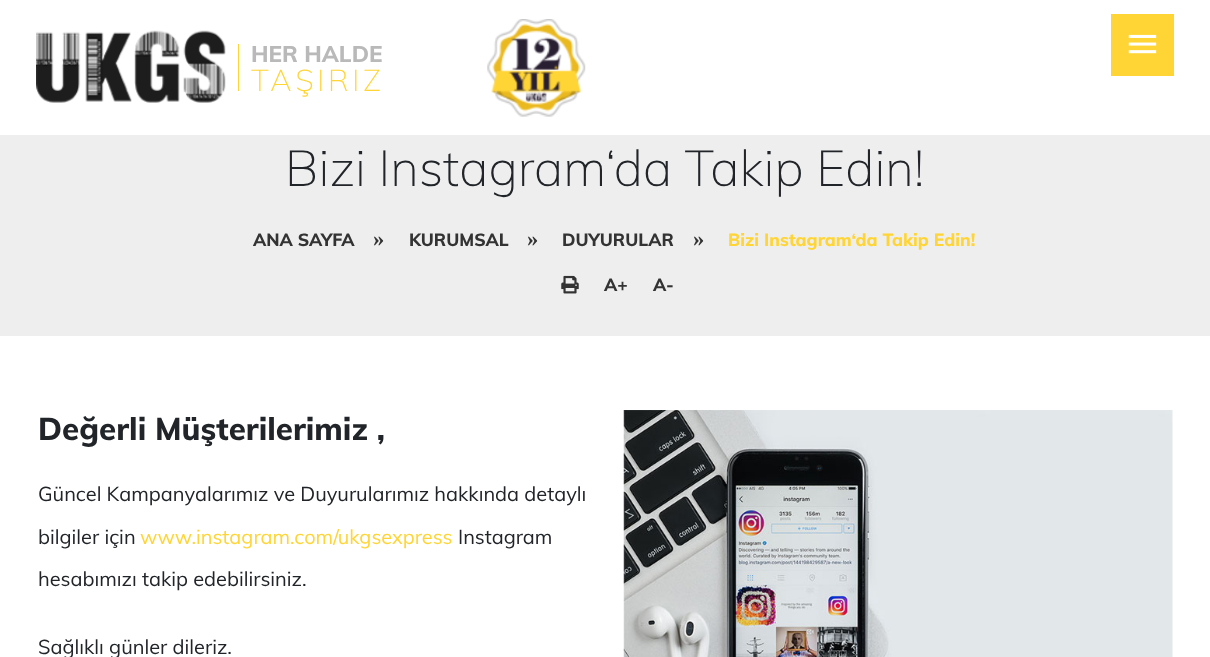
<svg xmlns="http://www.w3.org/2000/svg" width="1210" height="657">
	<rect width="100%" height="100%" fill="#FFFFFF" />
	<image x="36" y="30" width="190" height="73" href="assets/img1.png" />
	<rect x="238" y="44" width="1" height="47" fill="#FFD535" />
	<text x="251" y="62" font-family="Muli" font-size="22.5" font-weight="800" fill="#B9B9B9">HER HALDE</text>
	<text x="251" y="91" font-family="Muli" font-size="30" font-weight="200" letter-spacing="3.75" fill="#FFD535">TAŞIRIZ</text>
	<image x="487" y="19" width="99" height="98" href="assets/img2.png" />
	<rect x="1111" y="14" width="63" height="62" fill="#FFD535" />
	<image x="1128" y="34" width="29" height="20" href="assets/img3.png" />
	<rect x="0" y="135" width="1210" height="201" fill="#EEEEEE" />
	<text x="285" y="186" font-family="Muli" font-size="50" font-weight="200" fill="#212529">Bizi Instagram‘da Takip Edin!</text>
	<text x="253" y="246" font-family="Muli" font-size="17.5" font-weight="800" fill="#333333">ANA SAYFA</text>
	<text x="373" y="246" font-family="Liberation Serif" font-size="22.5" font-weight="700" fill="#333333">»</text>
	<text x="409" y="246" font-family="Muli" font-size="17.5" font-weight="800" fill="#333333">KURUMSAL</text>
	<text x="527" y="246" font-family="Liberation Serif" font-size="22.5" font-weight="700" fill="#333333">»</text>
	<text x="562" y="246" font-family="Muli" font-size="17.5" font-weight="800" fill="#333333">DUYURULAR</text>
	<text x="693" y="246" font-family="Liberation Serif" font-size="22.5" font-weight="700" fill="#333333">»</text>
	<text x="728" y="246" font-family="Muli" font-size="17.5" font-weight="800" fill="#FFD535">Bizi Instagram‘da Takip Edin!</text>
	<image x="561" y="275" width="18" height="19" href="assets/img4.png" />
	<g font-family="Muli" font-size="17.5" font-weight="800" fill="#333333">
		<text x="604" y="291">A+</text>
		<text x="653" y="291">A-</text>
	</g>
	<text x="38" y="440" font-family="Muli" font-size="31.25" font-weight="800" fill="#212529">Değerli Müşterilerimiz ,</text>
	<g font-family="Muli" font-size="20" fill="#212529">
		<text x="38" y="501">Güncel Kampanyalarımız ve Duyurularımız hakkında detaylı</text>
		<text x="38" y="544">bilgiler için</text>
	</g>
	<text x="140" y="544" font-family="Muli" font-size="20" fill="#FFD535">www.instagram.com/ukgsexpress</text>
	<g font-family="Muli" font-size="20" fill="#212529">
		<text x="458" y="544">Instagram</text>
		<text x="38" y="586">hesabımızı takip edebilirsiniz.</text>
		<text x="38" y="654">Sağlıklı günler dileriz.</text>
	</g>
	<image x="623" y="410" width="550" height="247" href="assets/img5.png" />
</svg>
